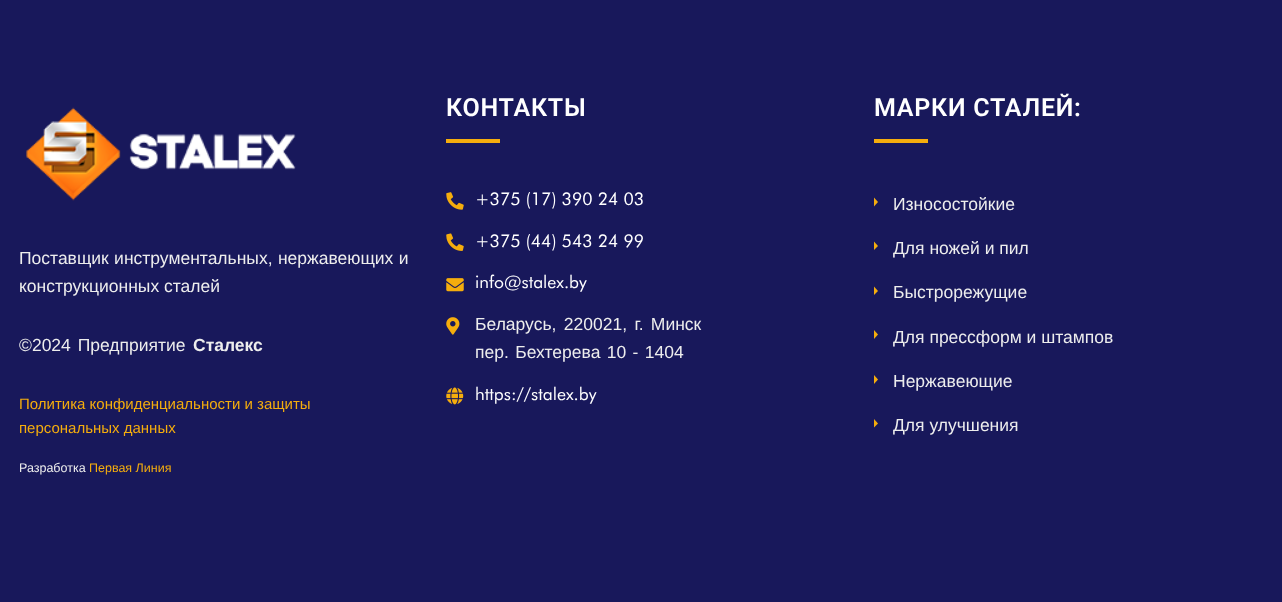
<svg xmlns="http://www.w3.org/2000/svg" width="1282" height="602">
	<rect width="100%" height="100%" fill="#18185B" />
	<image x="26" y="107" width="270" height="94" href="assets/img1.png" />
	<g font-family="Liberation Sans" font-size="17.5" fill="#EDEDED">
		<text x="19" y="264" word-spacing="0.5">Поставщик инструментальных, нержавеющих и</text>
		<text x="19" y="292">конструкционных сталей</text>
		<text x="19" y="351" word-spacing="2">©2024 Предприятие</text>
	</g>
	<text x="193" y="351" font-family="Liberation Sans" font-size="17.5" font-weight="700" fill="#EDEDED">Сталекс</text>
	<g font-family="Liberation Sans" font-size="15" fill="#F5AD0D">
		<text x="19" y="409">Политика конфиденциальности и защиты</text>
		<text x="19" y="433">персональных данных</text>
	</g>
	<text x="19" y="472" font-family="Liberation Sans" font-size="12.5" fill="#EDEDED">Разработка</text>
	<text x="89" y="472" font-family="Liberation Sans" font-size="12.5" fill="#F5AD0D">Первая Линия</text>
	<text x="446" y="116" font-family="Roboto" font-size="25" font-weight="600" letter-spacing="0.75" fill="#FFFFFF">КОНТАКТЫ</text>
	<rect x="446" y="139" width="54" height="4" fill="#F5AD0D" />
	<image x="446" y="192" width="18" height="18" href="assets/img2.png" />
	<text x="475" y="205" font-family="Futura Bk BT" font-size="17.5" fill="#FFFFFF">+375 (17) 390 24 03</text>
	<image x="446" y="233" width="18" height="18" href="assets/img3.png" />
	<text x="475" y="247" font-family="Futura Bk BT" font-size="17.5" fill="#FFFFFF">+375 (44) 543 24 99</text>
	<image x="446" y="278" width="18" height="14" href="assets/img4.png" />
	<text x="475" y="288" font-family="Futura Bk BT" font-size="17.5" fill="#FFFFFF">info@stalex.by</text>
	<image x="446" y="317" width="14" height="18" href="assets/img5.png" />
	<g font-family="Liberation Sans" font-size="17.5" fill="#EDEDED">
		<text x="475" y="330" word-spacing="2.5">Беларусь, 220021, г. Минск</text>
		<text x="475" y="358" word-spacing="1.5">пер. Бехтерева 10 - 1404</text>
	</g>
	<image x="446" y="387" width="18" height="18" href="assets/img6.png" />
	<text x="475" y="400" font-family="Futura Bk BT" font-size="17.5" fill="#FFFFFF">https://stalex.by</text>
	<text x="874" y="116" font-family="Roboto" font-size="25" font-weight="600" letter-spacing="0.75" fill="#FFFFFF">МАРКИ СТАЛЕЙ:</text>
	<rect x="874" y="139" width="54" height="4" fill="#F5AD0D" />
	<text x="893" y="210" font-family="Liberation Sans" font-size="17.5" fill="#EDEDED">Износостойкие</text>
	<path d="M874 206.5V197.5L878 202Z" fill="#F5AD0D" />
	<text x="893" y="254" font-family="Liberation Sans" font-size="17.5" fill="#EDEDED">Для ножей и пил</text>
	<path d="M874 250V241.5L878 246Z" fill="#F5AD0D" />
	<text x="893" y="298" font-family="Liberation Sans" font-size="17.5" fill="#EDEDED">Быстрорежущие</text>
	<path d="M874 295V286.5L878 291Z" fill="#F5AD0D" />
	<text x="893" y="343" font-family="Liberation Sans" font-size="17.5" fill="#EDEDED">Для прессформ и штампов</text>
	<path d="M874 339V330L878 334.5Z" fill="#F5AD0D" />
	<text x="893" y="387" font-family="Liberation Sans" font-size="17.5" fill="#EDEDED">Нержавеющие</text>
	<path d="M874 384V375L878 379.5Z" fill="#F5AD0D" />
	<text x="893" y="431" font-family="Liberation Sans" font-size="17.5" fill="#EDEDED">Для улучшения</text>
	<path d="M874 427.5V419L878 423.5Z" fill="#F5AD0D" />
</svg>
